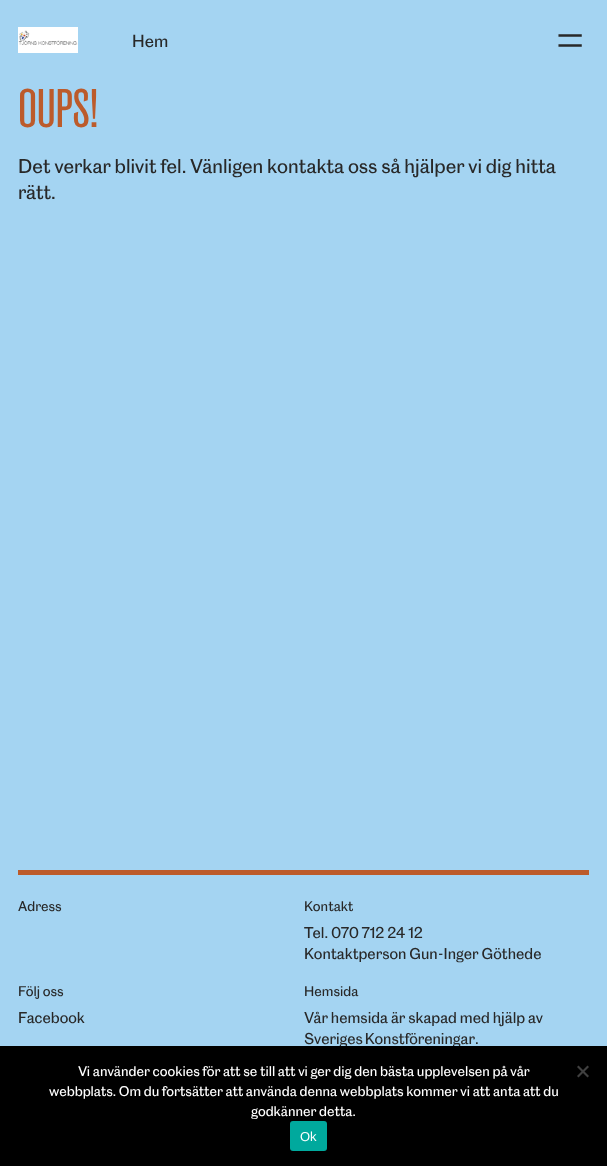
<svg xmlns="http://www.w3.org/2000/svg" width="607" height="1166">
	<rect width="100%" height="100%" fill="#A4D4F2" />
	<image x="18" y="27" width="60" height="26" href="assets/img1.png" />
	<text x="132" y="47" font-family="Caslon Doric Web" font-size="16" fill="#282828">Hem</text>
	<text x="556" y="57" font-family="Liberation Serif" font-size="50" fill="#282828">=</text>
	<text x="18" y="127" font-family="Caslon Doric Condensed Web" font-size="50" font-weight="500" fill="#BC5B2B">OUPS!</text>
	<g font-family="Caslon Doric Web" font-size="18.4" fill="#282828">
		<text x="18" y="173">Det verkar blivit fel. Vänligen kontakta oss så hjälper vi dig hitta</text>
		<text x="18" y="199">rätt.</text>
	</g>
	<rect x="18" y="870" width="571" height="5" fill="#BC5B2B" />
	<g font-family="Caslon Doric Web" font-size="13" fill="#282828">
		<text x="18" y="911">Adress</text>
		<text x="304" y="911">Kontakt</text>
	</g>
	<g font-family="Caslon Doric Web" font-size="14.4" fill="#282828">
		<text x="304" y="938">Tel. 070 712 24 12</text>
		<text x="304" y="959">Kontaktperson Gun-Inger Göthede</text>
	</g>
	<text x="18" y="996" font-family="Caslon Doric Web" font-size="13" fill="#282828">Följ oss</text>
	<text x="18" y="1023" font-family="Caslon Doric Web" font-size="14.4" fill="#282828">Facebook</text>
	<text x="304" y="996" font-family="Caslon Doric Web" font-size="13" fill="#282828">Hemsida</text>
	<g font-family="Caslon Doric Web" font-size="14.4" fill="#282828">
		<text x="304" y="1023">Vår hemsida är skapad med hjälp av</text>
		<text x="304" y="1044" word-spacing="-1">Sveriges Konstföreningar</text>
		<text x="475" y="1044">.</text>
	</g>
	<rect x="0" y="1046" width="607" height="120" fill="#000000" />
	<g font-family="Caslon Doric Web" font-size="13" fill="#FFFFFF">
		<text x="78" y="1076">Vi använder cookies för att se till att vi ger dig den bästa upplevelsen på vår</text>
		<text x="49" y="1096">webbplats. Om du fortsätter att använda denna webbplats kommer vi att anta att du</text>
		<text x="251" y="1116">godkänner detta.</text>
	</g>
	<path d="M587.5 1065.5L589 1067L578.5 1077.5L577 1076Z" fill="#404040" />
	<path d="M577 1067L578.5 1065.5L589 1076L587.5 1077.5Z" fill="#404040" />
	<rect x="290" y="1121" width="37" height="30" rx="3" fill="#00A99D" />
	<text x="300" y="1141" font-family="Liberation Sans" font-size="13" fill="#FFFFFF">Ok</text>
</svg>
